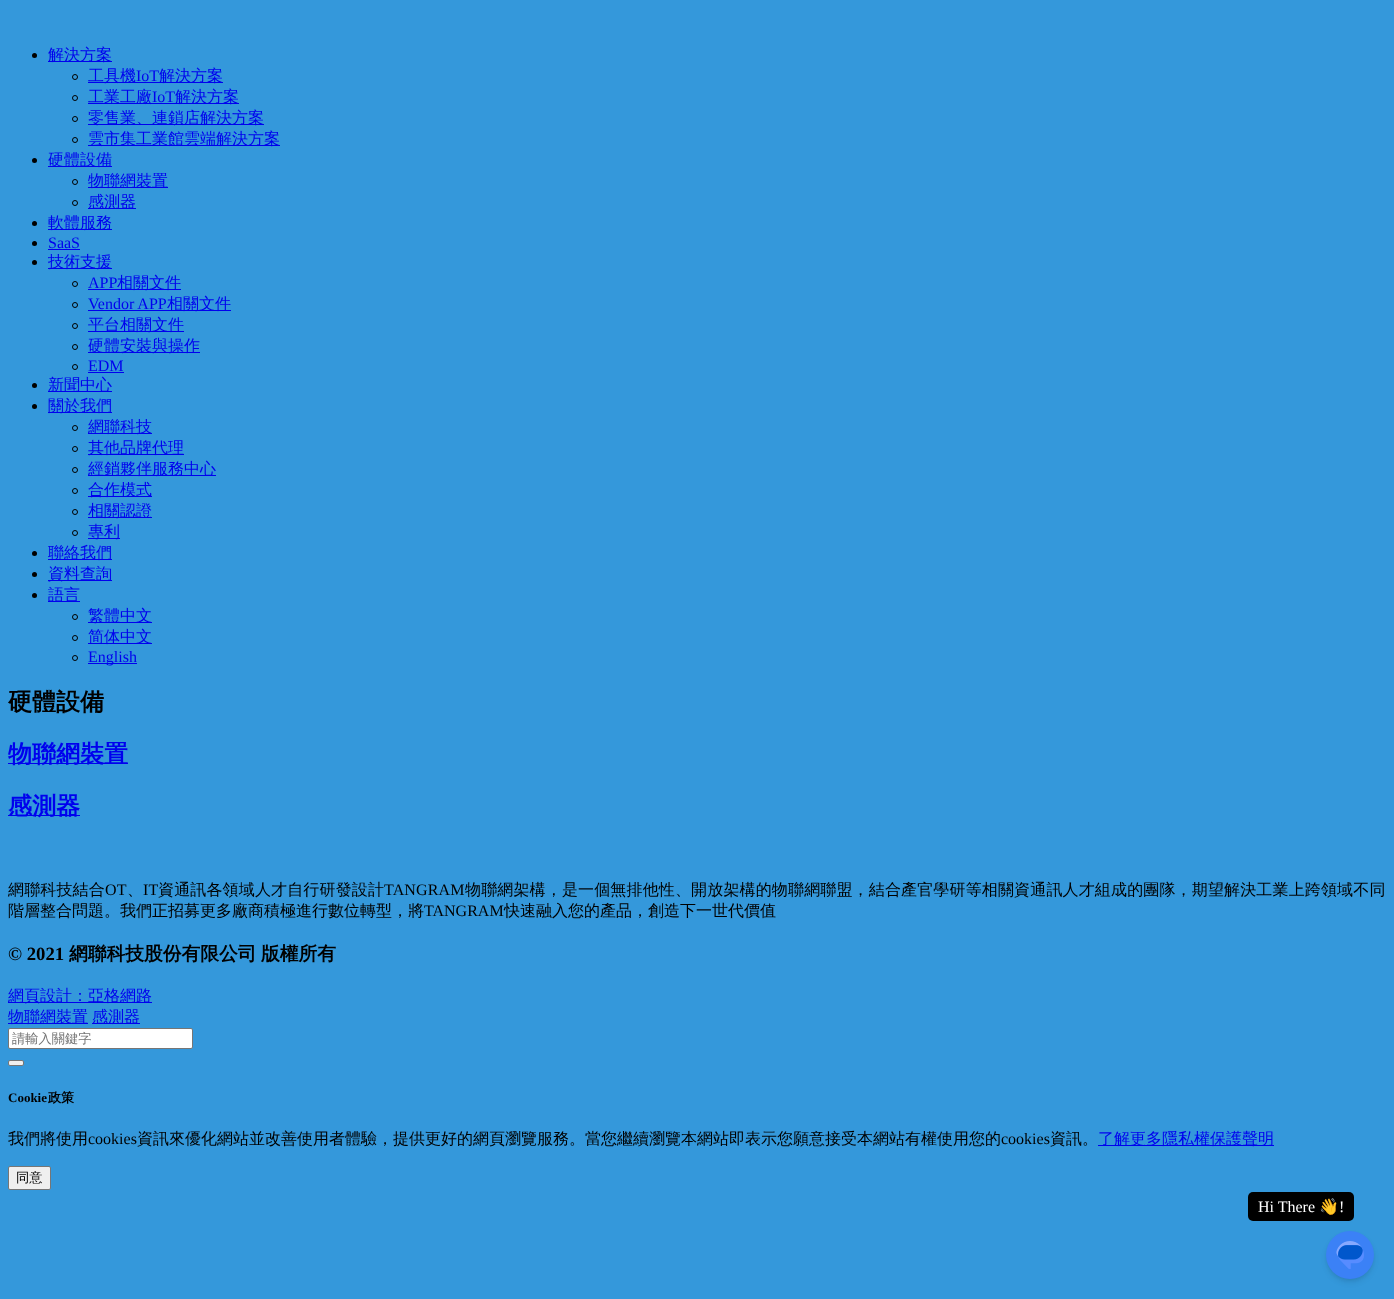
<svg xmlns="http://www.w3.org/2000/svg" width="1394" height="1299">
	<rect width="100%" height="100%" fill="#3498DB" />
	<circle cx="34.5" cy="55.5" r="2.5" fill="#000000" />
	<rect x="48" y="61" width="64" height="1" fill="#0000EE" />
	<text x="48" y="60" font-family="WenQuanYi Zen Hei" font-size="16" font-weight="500" fill="#0000EE">解決方案</text>
	<circle cx="75" cy="77" r="2.5" fill="none" stroke="#000000" />
	<rect x="88" y="82" width="135" height="1" fill="#0000EE" />
	<text x="88" y="81" font-family="WenQuanYi Zen Hei" font-size="16" font-weight="500" fill="#0000EE">工具機</text>
	<text x="136" y="81" font-family="Liberation Serif" font-size="16" fill="#0000EE">IoT</text>
	<text x="159" y="81" font-family="WenQuanYi Zen Hei" font-size="16" font-weight="500" fill="#0000EE">解決方案</text>
	<circle cx="75" cy="98" r="2.5" fill="none" stroke="#000000" />
	<rect x="88" y="103" width="151" height="1" fill="#0000EE" />
	<text x="88" y="102" font-family="WenQuanYi Zen Hei" font-size="16" font-weight="500" fill="#0000EE">工業工廠</text>
	<text x="152" y="102" font-family="Liberation Serif" font-size="16" fill="#0000EE">IoT</text>
	<text x="175" y="102" font-family="WenQuanYi Zen Hei" font-size="16" font-weight="500" fill="#0000EE">解決方案</text>
	<circle cx="75" cy="119" r="2.5" fill="none" stroke="#000000" />
	<rect x="88" y="124" width="176" height="1" fill="#0000EE" />
	<text x="88" y="123" font-family="WenQuanYi Zen Hei" font-size="16" font-weight="500" fill="#0000EE">零售業、連鎖店解決方案</text>
	<circle cx="75" cy="140" r="2.5" fill="none" stroke="#000000" />
	<rect x="88" y="145" width="192" height="1" fill="#0000EE" />
	<text x="88" y="144" font-family="WenQuanYi Zen Hei" font-size="16" font-weight="500" fill="#0000EE">雲市集工業館雲端解決方案</text>
	<circle cx="34.5" cy="160.5" r="2.5" fill="#000000" />
	<rect x="48" y="166" width="64" height="1" fill="#0000EE" />
	<text x="48" y="165" font-family="WenQuanYi Zen Hei" font-size="16" font-weight="500" fill="#0000EE">硬體設備</text>
	<circle cx="75" cy="182" r="2.5" fill="none" stroke="#000000" />
	<rect x="88" y="187" width="80" height="1" fill="#0000EE" />
	<text x="88" y="186" font-family="WenQuanYi Zen Hei" font-size="16" font-weight="500" fill="#0000EE">物聯網裝置</text>
	<circle cx="75" cy="203" r="2.5" fill="none" stroke="#000000" />
	<rect x="88" y="208" width="48" height="1" fill="#0000EE" />
	<text x="88" y="207" font-family="WenQuanYi Zen Hei" font-size="16" font-weight="500" fill="#0000EE">感測器</text>
	<circle cx="34.5" cy="223.5" r="2.5" fill="#000000" />
	<rect x="48" y="229" width="64" height="1" fill="#0000EE" />
	<text x="48" y="228" font-family="WenQuanYi Zen Hei" font-size="16" font-weight="500" fill="#0000EE">軟體服務</text>
	<circle cx="34.5" cy="243.5" r="2.5" fill="#000000" />
	<text x="48" y="248" font-family="Liberation Serif" font-size="16" fill="#0000EE">SaaS</text>
	<rect x="48" y="249" width="32" height="1" fill="#0000EE" />
	<circle cx="34.5" cy="262.5" r="2.5" fill="#000000" />
	<rect x="48" y="268" width="64" height="1" fill="#0000EE" />
	<text x="48" y="267" font-family="WenQuanYi Zen Hei" font-size="16" font-weight="500" fill="#0000EE">技術支援</text>
	<circle cx="75" cy="284" r="2.5" fill="none" stroke="#000000" />
	<text x="88" y="288" font-family="Liberation Serif" font-size="16" fill="#0000EE">APP</text>
	<rect x="88" y="289" width="93" height="1" fill="#0000EE" />
	<text x="117" y="288" font-family="WenQuanYi Zen Hei" font-size="16" font-weight="500" fill="#0000EE">相關文件</text>
	<circle cx="75" cy="305" r="2.5" fill="none" stroke="#000000" />
	<text x="88" y="309" font-family="Liberation Serif" font-size="16" fill="#0000EE">Vendor APP</text>
	<rect x="88" y="310" width="143" height="1" fill="#0000EE" />
	<text x="167" y="309" font-family="WenQuanYi Zen Hei" font-size="16" font-weight="500" fill="#0000EE">相關文件</text>
	<circle cx="75" cy="326" r="2.5" fill="none" stroke="#000000" />
	<rect x="88" y="331" width="96" height="1" fill="#0000EE" />
	<text x="88" y="330" font-family="WenQuanYi Zen Hei" font-size="16" font-weight="500" fill="#0000EE">平台相關文件</text>
	<circle cx="75" cy="347" r="2.5" fill="none" stroke="#000000" />
	<rect x="88" y="352" width="112" height="1" fill="#0000EE" />
	<text x="88" y="351" font-family="WenQuanYi Zen Hei" font-size="16" font-weight="500" fill="#0000EE">硬體安裝與操作</text>
	<circle cx="75" cy="367" r="2.5" fill="none" stroke="#000000" />
	<text x="88" y="371" font-family="Liberation Serif" font-size="16" fill="#0000EE">EDM</text>
	<rect x="88" y="372" width="36" height="1" fill="#0000EE" />
	<circle cx="34.5" cy="385.5" r="2.5" fill="#000000" />
	<rect x="48" y="391" width="64" height="1" fill="#0000EE" />
	<text x="48" y="390" font-family="WenQuanYi Zen Hei" font-size="16" font-weight="500" fill="#0000EE">新聞中心</text>
	<circle cx="34.5" cy="406.5" r="2.5" fill="#000000" />
	<rect x="48" y="412" width="64" height="1" fill="#0000EE" />
	<text x="48" y="411" font-family="WenQuanYi Zen Hei" font-size="16" font-weight="500" fill="#0000EE">關於我們</text>
	<circle cx="75" cy="428" r="2.5" fill="none" stroke="#000000" />
	<rect x="88" y="433" width="64" height="1" fill="#0000EE" />
	<text x="88" y="432" font-family="WenQuanYi Zen Hei" font-size="16" font-weight="500" fill="#0000EE">網聯科技</text>
	<circle cx="75" cy="449" r="2.5" fill="none" stroke="#000000" />
	<rect x="88" y="454" width="96" height="1" fill="#0000EE" />
	<text x="88" y="453" font-family="WenQuanYi Zen Hei" font-size="16" font-weight="500" fill="#0000EE">其他品牌代理</text>
	<circle cx="75" cy="470" r="2.5" fill="none" stroke="#000000" />
	<rect x="88" y="475" width="128" height="1" fill="#0000EE" />
	<text x="88" y="474" font-family="WenQuanYi Zen Hei" font-size="16" font-weight="500" fill="#0000EE">經銷夥伴服務中心</text>
	<circle cx="75" cy="491" r="2.5" fill="none" stroke="#000000" />
	<rect x="88" y="496" width="64" height="1" fill="#0000EE" />
	<text x="88" y="495" font-family="WenQuanYi Zen Hei" font-size="16" font-weight="500" fill="#0000EE">合作模式</text>
	<circle cx="75" cy="512" r="2.5" fill="none" stroke="#000000" />
	<rect x="88" y="517" width="64" height="1" fill="#0000EE" />
	<text x="88" y="516" font-family="WenQuanYi Zen Hei" font-size="16" font-weight="500" fill="#0000EE">相關認證</text>
	<circle cx="75" cy="533" r="2.5" fill="none" stroke="#000000" />
	<rect x="88" y="538" width="32" height="1" fill="#0000EE" />
	<text x="88" y="537" font-family="WenQuanYi Zen Hei" font-size="16" font-weight="500" fill="#0000EE">專利</text>
	<circle cx="34.5" cy="553.5" r="2.5" fill="#000000" />
	<rect x="48" y="559" width="64" height="1" fill="#0000EE" />
	<text x="48" y="558" font-family="WenQuanYi Zen Hei" font-size="16" font-weight="500" fill="#0000EE">聯絡我們</text>
	<circle cx="34.5" cy="574.5" r="2.5" fill="#000000" />
	<rect x="48" y="580" width="64" height="1" fill="#0000EE" />
	<text x="48" y="579" font-family="WenQuanYi Zen Hei" font-size="16" font-weight="500" fill="#0000EE">資料查詢</text>
	<circle cx="34.5" cy="595.5" r="2.5" fill="#000000" />
	<rect x="48" y="601" width="32" height="1" fill="#0000EE" />
	<text x="48" y="600" font-family="WenQuanYi Zen Hei" font-size="16" font-weight="500" fill="#0000EE">語言</text>
	<circle cx="75" cy="617" r="2.5" fill="none" stroke="#000000" />
	<rect x="88" y="622" width="64" height="1" fill="#0000EE" />
	<text x="88" y="621" font-family="WenQuanYi Zen Hei" font-size="16" font-weight="500" fill="#0000EE">繁體中文</text>
	<circle cx="75" cy="638" r="2.5" fill="none" stroke="#000000" />
	<rect x="88" y="643" width="64" height="1" fill="#0000EE" />
	<text x="88" y="642" font-family="WenQuanYi Zen Hei" font-size="16" font-weight="500" fill="#0000EE">简体中文</text>
	<circle cx="75" cy="658" r="2.5" fill="none" stroke="#000000" />
	<rect x="88" y="663" width="49" height="1" fill="#0000EE" />
	<text x="88" y="662" font-family="Liberation Serif" font-size="16" fill="#0000EE">English</text>
	<text x="8" y="710" font-family="WenQuanYi Zen Hei" font-size="24" font-weight="700" fill="#000000">硬體設備</text>
	<rect x="8" y="763" width="120" height="1" fill="#0000EE" />
	<text x="8" y="762" font-family="WenQuanYi Zen Hei" font-size="24" font-weight="700" fill="#0000EE">物聯網裝置</text>
	<rect x="8" y="815" width="72" height="1" fill="#0000EE" />
	<text x="8" y="814" font-family="WenQuanYi Zen Hei" font-size="24" font-weight="700" fill="#0000EE">感測器</text>
	<text x="8" y="895" font-family="WenQuanYi Zen Hei" font-size="16" font-weight="500" letter-spacing="0.15" fill="#000000">網聯科技結合</text>
	<text x="105" y="895" font-family="Liberation Serif" font-size="16" letter-spacing="0.15" fill="#000000">OT</text>
	<text x="127" y="895" font-family="WenQuanYi Zen Hei" font-size="16" font-weight="500" letter-spacing="0.15" fill="#000000">、</text>
	<text x="143" y="895" font-family="Liberation Serif" font-size="16" letter-spacing="0.15" fill="#000000">IT</text>
	<text x="158" y="895" font-family="WenQuanYi Zen Hei" font-size="16" font-weight="500" letter-spacing="0.15" fill="#000000">資通訊各領域人才自行研發設計</text>
	<text x="384" y="895" font-family="Liberation Serif" font-size="16" letter-spacing="0.15" fill="#000000">TANGRAM</text>
	<text x="465" y="895" font-family="WenQuanYi Zen Hei" font-size="16" font-weight="500" letter-spacing="0.15" fill="#000000">物聯網架構，是一個無排他性、開放架構的物聯網聯盟，結合產官學研等相關資通訊人才組成的團隊，期望解決工業上跨領域不同</text>
	<text x="8" y="916" font-family="WenQuanYi Zen Hei" font-size="16" font-weight="500" fill="#000000">階層整合問題。我們正招募更多廠商積極進行數位轉型，將</text>
	<text x="424" y="916" font-family="Liberation Serif" font-size="16" fill="#000000">TANGRAM</text>
	<text x="504" y="916" font-family="WenQuanYi Zen Hei" font-size="16" font-weight="500" fill="#000000">快速融入您的產品，創造下一世代價值</text>
	<text x="8" y="960" font-family="Liberation Serif" font-size="18.75" font-weight="700" fill="#000000">© 2021</text>
	<g font-family="WenQuanYi Zen Hei" font-size="18.75" font-weight="700" fill="#000000">
		<text x="69" y="960">網聯科技股份有限公司</text>
		<text x="261" y="960">版權所有</text>
	</g>
	<rect x="8" y="1002" width="144" height="1" fill="#0000EE" />
	<text x="8" y="1001" font-family="WenQuanYi Zen Hei" font-size="16" font-weight="500" fill="#0000EE">網頁設計：亞格網路</text>
	<rect x="8" y="1023" width="80" height="1" fill="#0000EE" />
	<text x="8" y="1022" font-family="WenQuanYi Zen Hei" font-size="16" font-weight="500" fill="#0000EE">物聯網裝置</text>
	<rect x="92" y="1023" width="48" height="1" fill="#0000EE" />
	<text x="92" y="1022" font-family="WenQuanYi Zen Hei" font-size="16" font-weight="500" fill="#0000EE">感測器</text>
	<rect x="8.5" y="1028.5" width="184" height="20" rx="1.5" fill="#FFFFFF" stroke="#767676" />
	<text x="12" y="1043" font-family="WenQuanYi Zen Hei" font-size="13.25" font-weight="500" fill="#757575">請輸入關鍵字</text>
	<rect x="8.5" y="1060.5" width="15" height="5" rx="1.5" fill="#EFEFEF" stroke="#767676" />
	<text x="8" y="1102" font-family="Liberation Serif" font-size="13" font-weight="700" fill="#000000">Cookie</text>
	<text x="48" y="1102" font-family="WenQuanYi Zen Hei" font-size="13" font-weight="700" fill="#000000">政策</text>
	<text x="8" y="1144" font-family="WenQuanYi Zen Hei" font-size="16" font-weight="500" fill="#000000">我們將使用</text>
	<text x="88" y="1144" font-family="Liberation Serif" font-size="16" fill="#000000">cookies</text>
	<text x="137" y="1144" font-family="WenQuanYi Zen Hei" font-size="16" font-weight="500" fill="#000000">資訊來優化網站並改善使用者體驗，提供更好的網頁瀏覽服務。當您繼續瀏覽本網站即表示您願意接受本網站有權使用您的</text>
	<text x="1001" y="1144" font-family="Liberation Serif" font-size="16" fill="#000000">cookies</text>
	<text x="1050" y="1144" font-family="WenQuanYi Zen Hei" font-size="16" font-weight="500" fill="#000000">資訊。</text>
	<rect x="1098" y="1145" width="176" height="1" fill="#0000EE" />
	<text x="1098" y="1144" font-family="WenQuanYi Zen Hei" font-size="16" font-weight="500" fill="#0000EE">了解更多隱私權保護聲明</text>
	<rect x="8.5" y="1166.5" width="42" height="23" rx="1.5" fill="#EFEFEF" stroke="#767676" />
	<text x="16" y="1182" font-family="WenQuanYi Zen Hei" font-size="13.25" font-weight="500" fill="#000000">同意</text>
	<rect x="1248" y="1192" width="106" height="29" rx="5" fill="#000000" />
	<text x="1258" y="1212" font-family="Liberation Serif" font-size="16" fill="#FFFFFF">Hi There</text>
	<text x="1319" y="1212" font-family="Noto Color Emoji" font-size="16" fill="#FFFFFF">👋</text>
	<text x="1339" y="1212" font-family="Liberation Serif" font-size="16" fill="#FFFFFF">!</text>
	<rect x="1328" y="1235" width="44" height="44" rx="22" fill="#000000" fill-opacity="0.1" filter="blur(2px)" />
	<rect x="1327" y="1236" width="46" height="46" rx="23" fill="#000000" fill-opacity="0.1" filter="blur(3px)" />
	<circle cx="1350" cy="1255" r="24" fill="#3B81F6" />
	<image x="1336" y="1241" width="28" height="28" href="assets/img1.png" />
</svg>
